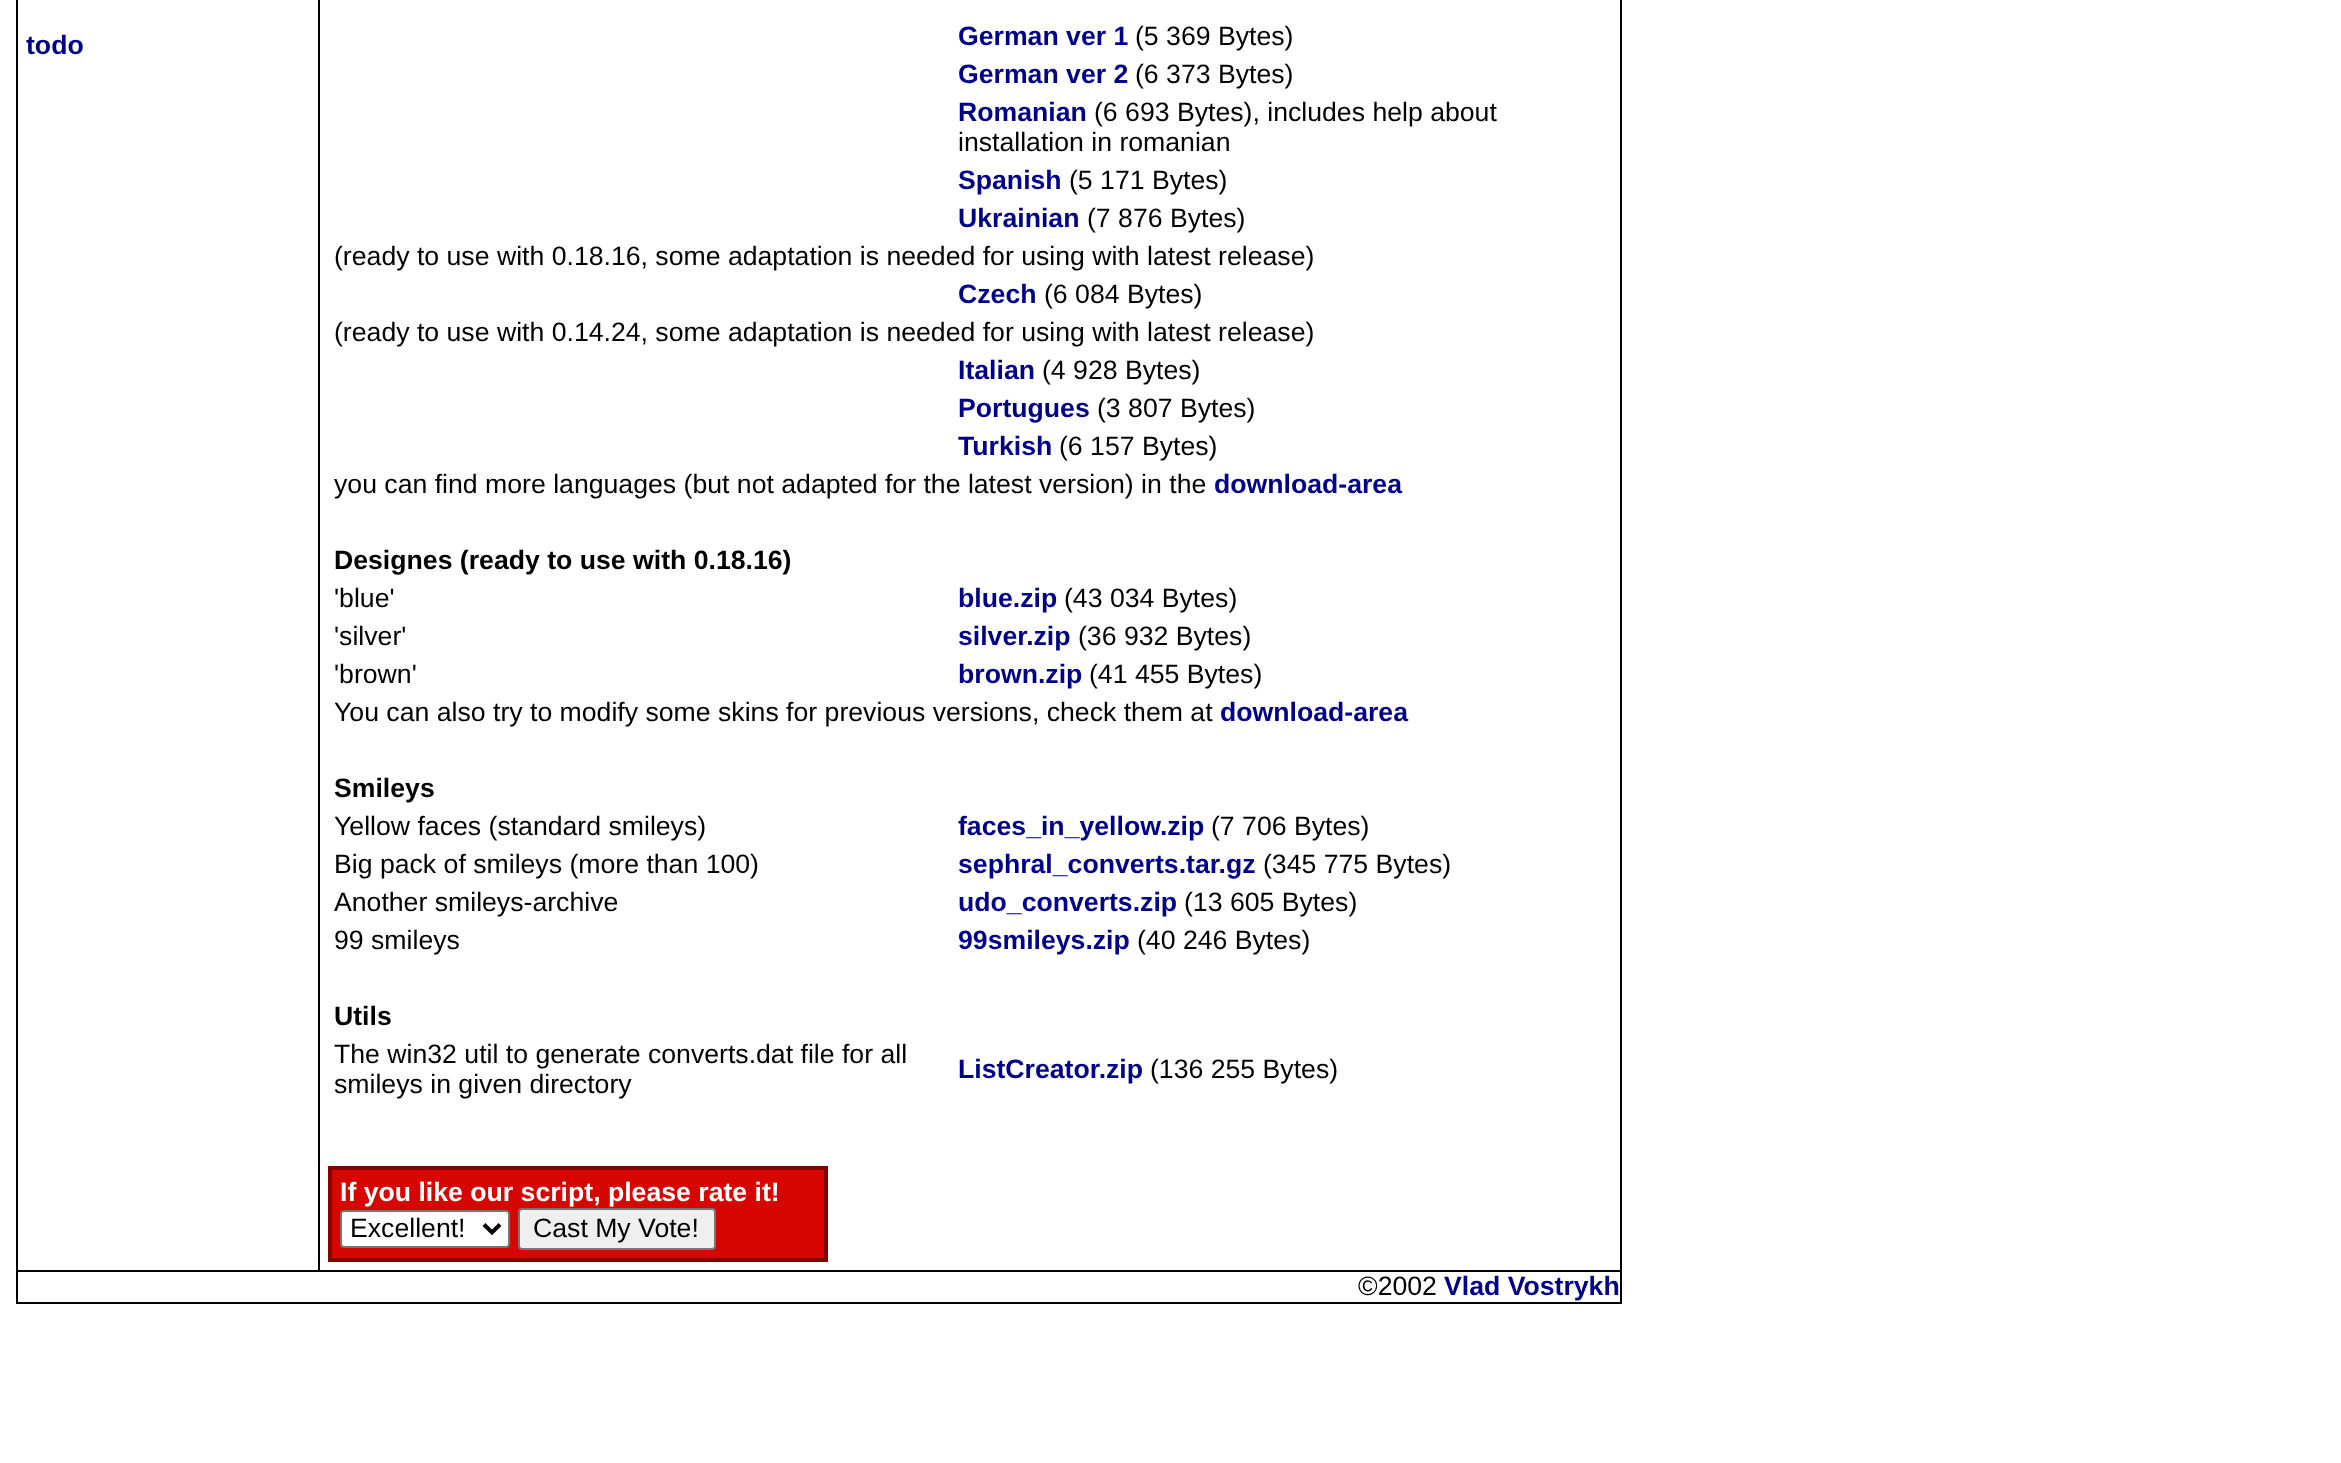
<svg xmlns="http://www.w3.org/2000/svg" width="2341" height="1463">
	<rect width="100%" height="100%" fill="#FFFFFF" />
	<rect x="16" y="0" width="1606" height="1304" fill="#000000" />
	<rect x="18" y="0" width="300" height="1270" fill="#FFFFFF" />
	<text x="26" y="54" font-family="Liberation Sans" font-size="26.65" font-weight="700" fill="#000088">todo</text>
	<rect x="320" y="0" width="1300" height="1270" fill="#FFFFFF" />
	<text x="958" y="45" font-family="Liberation Sans" font-size="26.65" font-weight="700" fill="#000088">German ver 1</text>
	<text x="1135" y="45" font-family="Liberation Sans" font-size="26.65" fill="#000000">(5 369 Bytes)</text>
	<text x="958" y="83" font-family="Liberation Sans" font-size="26.65" font-weight="700" fill="#000088">German ver 2</text>
	<text x="1135" y="83" font-family="Liberation Sans" font-size="26.65" fill="#000000">(6 373 Bytes)</text>
	<text x="958" y="121" font-family="Liberation Sans" font-size="26.65" font-weight="700" fill="#000088">Romanian</text>
	<g font-family="Liberation Sans" font-size="26.65" fill="#000000">
		<text x="1094" y="121">(6 693 Bytes), includes help about</text>
		<text x="958" y="151">installation in romanian</text>
	</g>
	<text x="958" y="189" font-family="Liberation Sans" font-size="26.65" font-weight="700" fill="#000088">Spanish</text>
	<text x="1069" y="189" font-family="Liberation Sans" font-size="26.65" fill="#000000">(5 171 Bytes)</text>
	<text x="958" y="227" font-family="Liberation Sans" font-size="26.65" font-weight="700" fill="#000088">Ukrainian</text>
	<g font-family="Liberation Sans" font-size="26.65" fill="#000000">
		<text x="1087" y="227">(7 876 Bytes)</text>
		<text x="334" y="265">(ready to use with 0.18.16, some adaptation is needed for using with latest release)</text>
	</g>
	<text x="958" y="303" font-family="Liberation Sans" font-size="26.65" font-weight="700" fill="#000088">Czech</text>
	<g font-family="Liberation Sans" font-size="26.65" fill="#000000">
		<text x="1044" y="303">(6 084 Bytes)</text>
		<text x="334" y="341">(ready to use with 0.14.24, some adaptation is needed for using with latest release)</text>
	</g>
	<text x="958" y="379" font-family="Liberation Sans" font-size="26.65" font-weight="700" fill="#000088">Italian</text>
	<text x="1042" y="379" font-family="Liberation Sans" font-size="26.65" fill="#000000">(4 928 Bytes)</text>
	<text x="958" y="417" font-family="Liberation Sans" font-size="26.65" font-weight="700" fill="#000088">Portugues</text>
	<text x="1097" y="417" font-family="Liberation Sans" font-size="26.65" fill="#000000">(3 807 Bytes)</text>
	<text x="958" y="455" font-family="Liberation Sans" font-size="26.65" font-weight="700" fill="#000088">Turkish</text>
	<g font-family="Liberation Sans" font-size="26.65" fill="#000000">
		<text x="1059" y="455">(6 157 Bytes)</text>
		<text x="334" y="493">you can find more languages (but not adapted for the latest version) in the</text>
	</g>
	<text x="1214" y="493" font-family="Liberation Sans" font-size="26.65" font-weight="700" fill="#000088">download-area</text>
	<text x="334" y="569" font-family="Liberation Sans" font-size="26.65" font-weight="700" fill="#000000">Designes (ready to use with 0.18.16)</text>
	<text x="334" y="607" font-family="Liberation Sans" font-size="26.65" fill="#000000">'blue'</text>
	<text x="958" y="607" font-family="Liberation Sans" font-size="26.65" font-weight="700" fill="#000088">blue.zip</text>
	<g font-family="Liberation Sans" font-size="26.65" fill="#000000">
		<text x="1064" y="607">(43 034 Bytes)</text>
		<text x="334" y="645">'silver'</text>
	</g>
	<text x="958" y="645" font-family="Liberation Sans" font-size="26.65" font-weight="700" fill="#000088">silver.zip</text>
	<g font-family="Liberation Sans" font-size="26.65" fill="#000000">
		<text x="1078" y="645">(36 932 Bytes)</text>
		<text x="334" y="683">'brown'</text>
	</g>
	<text x="958" y="683" font-family="Liberation Sans" font-size="26.65" font-weight="700" fill="#000088">brown.zip</text>
	<g font-family="Liberation Sans" font-size="26.65" fill="#000000">
		<text x="1089" y="683">(41 455 Bytes)</text>
		<text x="334" y="721">You can also try to modify some skins for previous versions, check them at</text>
	</g>
	<text x="1220" y="721" font-family="Liberation Sans" font-size="26.65" font-weight="700" fill="#000088">download-area</text>
	<text x="334" y="797" font-family="Liberation Sans" font-size="26.65" font-weight="700" fill="#000000">Smileys</text>
	<text x="334" y="835" font-family="Liberation Sans" font-size="26.65" fill="#000000">Yellow faces (standard smileys)</text>
	<text x="958" y="835" font-family="Liberation Sans" font-size="26.65" font-weight="700" fill="#000088">faces_in_yellow.zip</text>
	<g font-family="Liberation Sans" font-size="26.65" fill="#000000">
		<text x="1211" y="835">(7 706 Bytes)</text>
		<text x="334" y="873">Big pack of smileys (more than 100)</text>
	</g>
	<text x="958" y="873" font-family="Liberation Sans" font-size="26.65" font-weight="700" fill="#000088">sephral_converts.tar.gz</text>
	<g font-family="Liberation Sans" font-size="26.65" fill="#000000">
		<text x="1263" y="873">(345 775 Bytes)</text>
		<text x="334" y="911">Another smileys-archive</text>
	</g>
	<text x="958" y="911" font-family="Liberation Sans" font-size="26.65" font-weight="700" fill="#000088">udo_converts.zip</text>
	<g font-family="Liberation Sans" font-size="26.65" fill="#000000">
		<text x="1184" y="911">(13 605 Bytes)</text>
		<text x="334" y="949">99 smileys</text>
	</g>
	<text x="958" y="949" font-family="Liberation Sans" font-size="26.65" font-weight="700" fill="#000088">99smileys.zip</text>
	<text x="1137" y="949" font-family="Liberation Sans" font-size="26.65" fill="#000000">(40 246 Bytes)</text>
	<text x="334" y="1025" font-family="Liberation Sans" font-size="26.65" font-weight="700" fill="#000000">Utils</text>
	<g font-family="Liberation Sans" font-size="26.65" fill="#000000">
		<text x="334" y="1063">The win32 util to generate converts.dat file for all</text>
		<text x="334" y="1093">smileys in given directory</text>
	</g>
	<text x="958" y="1078" font-family="Liberation Sans" font-size="26.65" font-weight="700" fill="#000088">ListCreator.zip</text>
	<text x="1150" y="1078" font-family="Liberation Sans" font-size="26.65" fill="#000000">(136 255 Bytes)</text>
	<rect x="332" y="1170" width="492" height="88" fill="#D70500" />
	<rect x="329" y="1167" width="498" height="94" fill="none" stroke="#840300" stroke-width="2" />
	<rect x="331" y="1169" width="494" height="90" fill="none" stroke="#840300" stroke-width="2" />
	<text x="340" y="1201" font-family="Liberation Sans" font-size="26.65" font-weight="700" fill="#FFFFFF">If you like our script, please rate it!</text>
	<rect x="341" y="1211" width="168" height="36" rx="3" fill="#FFFFFF" stroke="#767676" stroke-width="2" />
	<path d="M484 1224.5L492 1232.5L500 1224.5" fill="none" stroke="#000000" stroke-width="4" />
	<text x="350" y="1237" font-family="Liberation Sans" font-size="26.65" fill="#000000">Excellent!</text>
	<rect x="519" y="1209" width="196" height="40" rx="3" fill="#EFEFEF" stroke="#767676" stroke-width="2" />
	<text x="533" y="1237" font-family="Liberation Sans" font-size="26.65" fill="#000000">Cast My Vote!</text>
	<rect x="18" y="1272" width="1602" height="30" fill="#FFFFFF" />
	<text x="1358" y="1295" font-family="Liberation Sans" font-size="26.65" fill="#000000">©2002</text>
	<text x="1444" y="1295" font-family="Liberation Sans" font-size="26.65" font-weight="700" fill="#000088">Vlad Vostrykh</text>
</svg>
